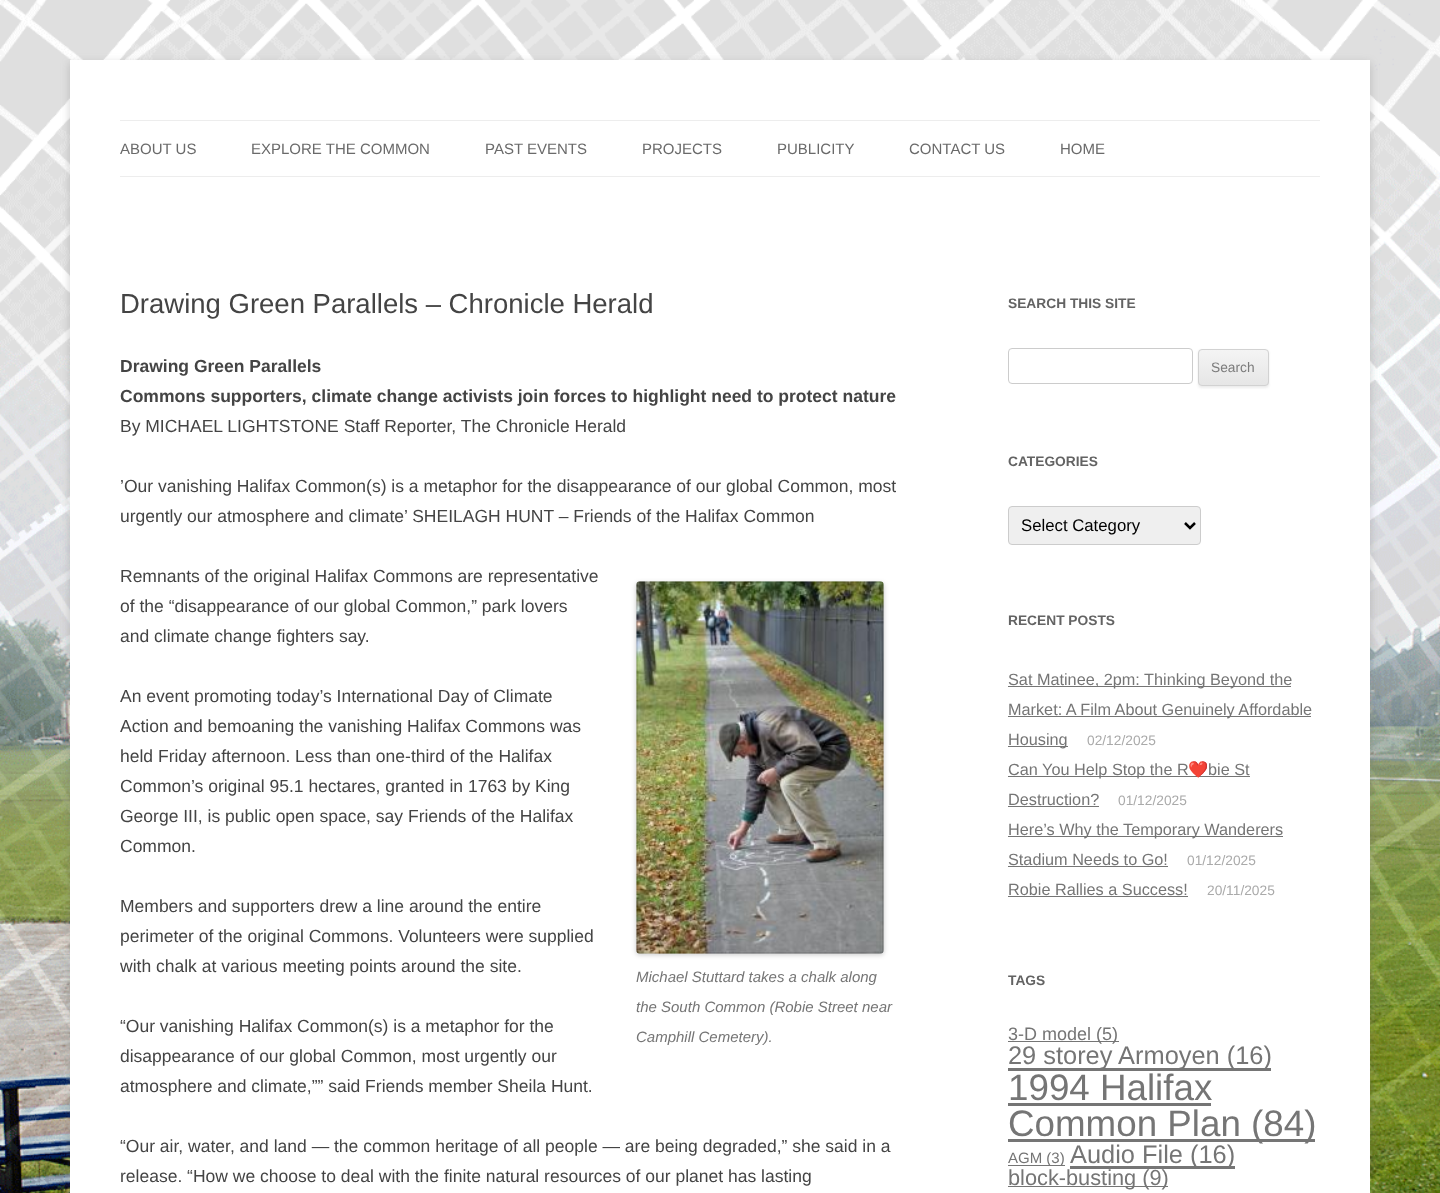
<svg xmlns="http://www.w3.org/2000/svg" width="1440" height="1193">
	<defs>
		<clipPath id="clip1"><rect x="1198" y="349" width="71" height="37" rx="4" /></clipPath>
		<linearGradient id="g1" gradientUnits="userSpaceOnUse" x1="1233" y1="350" x2="1233" y2="385"><stop offset="0" stop-color="#F4F4F4" /><stop offset="1" stop-color="#E6E6E6" /></linearGradient>
	</defs>
	<rect width="100%" height="100%" fill="#FFFFFF" />
	<image x="0" y="0" width="1440" height="1193" href="assets/img1.png" />
	<rect x="70" y="63" width="1300" height="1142" fill="#646464" fill-opacity="0.3" filter="blur(4px)" />
	<rect x="70" y="60" width="1300" height="1133" fill="#FFFFFF" />
	<rect x="120" y="120" width="1200" height="1" fill="#EDEDED" />
	<rect x="120" y="176" width="1200" height="1" fill="#EDEDED" />
	<g font-family="Liberation Sans" font-size="15" fill="#6A6A6A">
		<text x="120" y="154">ABOUT US</text>
		<text x="251" y="154">EXPLORE THE COMMON</text>
		<text x="485" y="154">PAST EVENTS</text>
		<text x="642" y="154">PROJECTS</text>
		<text x="777" y="154">PUBLICITY</text>
		<text x="909" y="154">CONTACT US</text>
		<text x="1060" y="154">HOME</text>
	</g>
	<text x="120" y="313" font-family="Liberation Sans" font-size="27.5" fill="#444444">Drawing Green Parallels – Chronicle Herald</text>
	<g font-family="Liberation Sans" font-size="17.5" font-weight="700" fill="#444444">
		<text x="120" y="372">Drawing Green Parallels</text>
		<text x="120" y="402">Commons supporters, climate change activists join forces to highlight need to protect nature</text>
	</g>
	<g font-family="Liberation Sans" font-size="17.5" fill="#444444">
		<text x="120" y="432">By MICHAEL LIGHTSTONE Staff Reporter, The Chronicle Herald</text>
		<text x="120" y="492">’Our vanishing Halifax Common(s) is a metaphor for the disappearance of our global Common, most</text>
		<text x="120" y="522">urgently our atmosphere and climate’ SHEILAGH HUNT – Friends of the Halifax Common</text>
		<text x="120" y="582">Remnants of the original Halifax Commons are representative</text>
		<text x="120" y="612">of the “disappearance of our global Common,” park lovers</text>
		<text x="120" y="642">and climate change fighters say.</text>
		<text x="120" y="702">An event promoting today’s International Day of Climate</text>
		<text x="120" y="732">Action and bemoaning the vanishing Halifax Commons was</text>
		<text x="120" y="762">held Friday afternoon. Less than one-third of the Halifax</text>
		<text x="120" y="792">Common’s original 95.1 hectares, granted in 1763 by King</text>
		<text x="120" y="822">George III, is public open space, say Friends of the Halifax</text>
		<text x="120" y="852">Common.</text>
		<text x="120" y="912">Members and supporters drew a line around the entire</text>
		<text x="120" y="942">perimeter of the original Commons. Volunteers were supplied</text>
		<text x="120" y="972">with chalk at various meeting points around the site.</text>
	</g>
	<rect x="636" y="583" width="248" height="372" rx="4" fill="#000000" fill-opacity="0.2" filter="blur(2.5px)" />
	<image x="636" y="581" width="248" height="373" href="assets/img2.png" />
	<g font-family="Liberation Sans" font-size="15" font-style="italic" fill="#757575">
		<text x="636" y="982">Michael Stuttard takes a chalk along</text>
		<text x="636" y="1012">the South Common (Robie Street near</text>
		<text x="636" y="1042">Camphill Cemetery).</text>
	</g>
	<g font-family="Liberation Sans" font-size="17.5" fill="#444444">
		<text x="120" y="1032">“Our vanishing Halifax Common(s) is a metaphor for the</text>
		<text x="120" y="1062">disappearance of our global Common, most urgently our</text>
		<text x="120" y="1092">atmosphere and climate,”” said Friends member Sheila Hunt.</text>
		<text x="120" y="1152">“Our air, water, and land — the common heritage of all people — are being degraded,” she said in a</text>
		<text x="120" y="1182">release. “How we choose to deal with the finite natural resources of our planet has lasting</text>
	</g>
	<text x="1008" y="308" font-family="Liberation Sans" font-size="13.75" font-weight="700" fill="#636363">SEARCH THIS SITE</text>
	<rect x="1008.5" y="348.5" width="184" height="35" rx="3.5" fill="none" stroke="#CCCCCC" />
	<rect x="1198" y="350" width="71" height="38" rx="4" fill="#404040" fill-opacity="0.1" filter="blur(1px)" />
	<g clip-path="url(#clip1)">
		<rect x="1198" y="350" width="71" height="35" fill="url(#g1)" />
	</g>
	<rect x="1198.5" y="349.5" width="70" height="36" rx="3.5" fill="none" stroke="#D2D2D2" />
	<text x="1211" y="372" font-family="Liberation Sans" font-size="13.75" fill="#7C7C7C">Search</text>
	<text x="1008" y="466" font-family="Liberation Sans" font-size="13.75" font-weight="700" fill="#636363">CATEGORIES</text>
	<rect x="1008.5" y="506.5" width="192" height="38" rx="3.5" fill="#EFEFEF" stroke="#CCCCCC" />
	<path d="M1185 523L1190 528L1195 523" fill="none" stroke="#000000" stroke-width="2.5" />
	<text x="1021" y="531" font-family="Liberation Sans" font-size="16.75" fill="#000000">Select Category</text>
	<text x="1008" y="625" font-family="Liberation Sans" font-size="13.75" font-weight="700" fill="#636363">RECENT POSTS</text>
	<rect x="1008" y="686" width="283" height="1" fill="#757575" />
	<text x="1008" y="685" font-family="Liberation Sans" font-size="16.25" fill="#757575">Sat Matinee, 2pm: Thinking Beyond the</text>
	<rect x="1008" y="716" width="303" height="1" fill="#757575" />
	<text x="1008" y="715" font-family="Liberation Sans" font-size="16.25" fill="#757575">Market: A Film About Genuinely Affordable</text>
	<rect x="1008" y="746" width="60" height="1" fill="#757575" />
	<text x="1008" y="745" font-family="Liberation Sans" font-size="16.25" fill="#757575">Housing</text>
	<text x="1087" y="745" font-family="Liberation Sans" font-size="13.75" fill="#AAAAAA">02/12/2025</text>
	<rect x="1008" y="776" width="242" height="1" fill="#757575" />
	<text x="1008" y="775" font-family="Liberation Sans" font-size="16.25" fill="#757575">Can You Help Stop the R</text>
	<text x="1188" y="775" font-family="Noto Color Emoji" font-size="16.25" fill="#757575">❤️</text>
	<g font-family="Liberation Sans" font-size="16.25" fill="#757575">
		<text x="1208" y="775">bie St</text>
		<text x="1008" y="805">Destruction?</text>
	</g>
	<rect x="1008" y="806" width="91" height="1" fill="#757575" />
	<text x="1118" y="805" font-family="Liberation Sans" font-size="13.75" fill="#AAAAAA">01/12/2025</text>
	<rect x="1008" y="836" width="275" height="1" fill="#757575" />
	<g font-family="Liberation Sans" font-size="16.25" fill="#757575">
		<text x="1008" y="835">Here’s Why the Temporary Wanderers</text>
		<text x="1008" y="865">Stadium Needs to Go!</text>
	</g>
	<rect x="1008" y="866" width="160" height="1" fill="#757575" />
	<text x="1187" y="865" font-family="Liberation Sans" font-size="13.75" fill="#AAAAAA">01/12/2025</text>
	<text x="1008" y="895" font-family="Liberation Sans" font-size="16.25" fill="#757575">Robie Rallies a Success!</text>
	<rect x="1008" y="896" width="180" height="1" fill="#757575" />
	<text x="1207" y="895" font-family="Liberation Sans" font-size="13.75" fill="#AAAAAA">20/11/2025</text>
	<text x="1008" y="985" font-family="Liberation Sans" font-size="13.75" font-weight="700" fill="#636363">TAGS</text>
	<rect x="1008" y="1041" width="111" height="1" fill="#757575" />
	<text x="1008" y="1040" font-family="Liberation Sans" font-size="18" fill="#757575">3-D model (5)</text>
	<rect x="1008" y="1068" width="263" height="3" fill="#757575" />
	<text x="1008" y="1064" font-family="Liberation Sans" font-size="25.4" fill="#757575">29 storey Armoyen (16)</text>
	<text x="1008" y="1100" font-family="Liberation Sans" font-size="36.75" fill="#757575">1994 Halifax</text>
	<rect x="1008" y="1103" width="203" height="3" fill="#757575" />
	<rect x="1008" y="1139" width="307" height="3" fill="#757575" />
	<text x="1008" y="1136" font-family="Liberation Sans" font-size="36.75" fill="#757575">Common Plan (84)</text>
	<rect x="1008" y="1165" width="57" height="1" fill="#757575" />
	<text x="1008" y="1163" font-family="Liberation Sans" font-size="15" fill="#757575">AGM (3)</text>
	<rect x="1070" y="1166" width="165" height="3" fill="#757575" />
	<text x="1070" y="1163" font-family="Liberation Sans" font-size="25.4" fill="#757575">Audio File (16)</text>
	<rect x="1008" y="1186" width="160" height="1" fill="#757575" />
	<text x="1008" y="1185" font-family="Liberation Sans" font-size="21.75" fill="#757575">block-busting (9)</text>
</svg>
